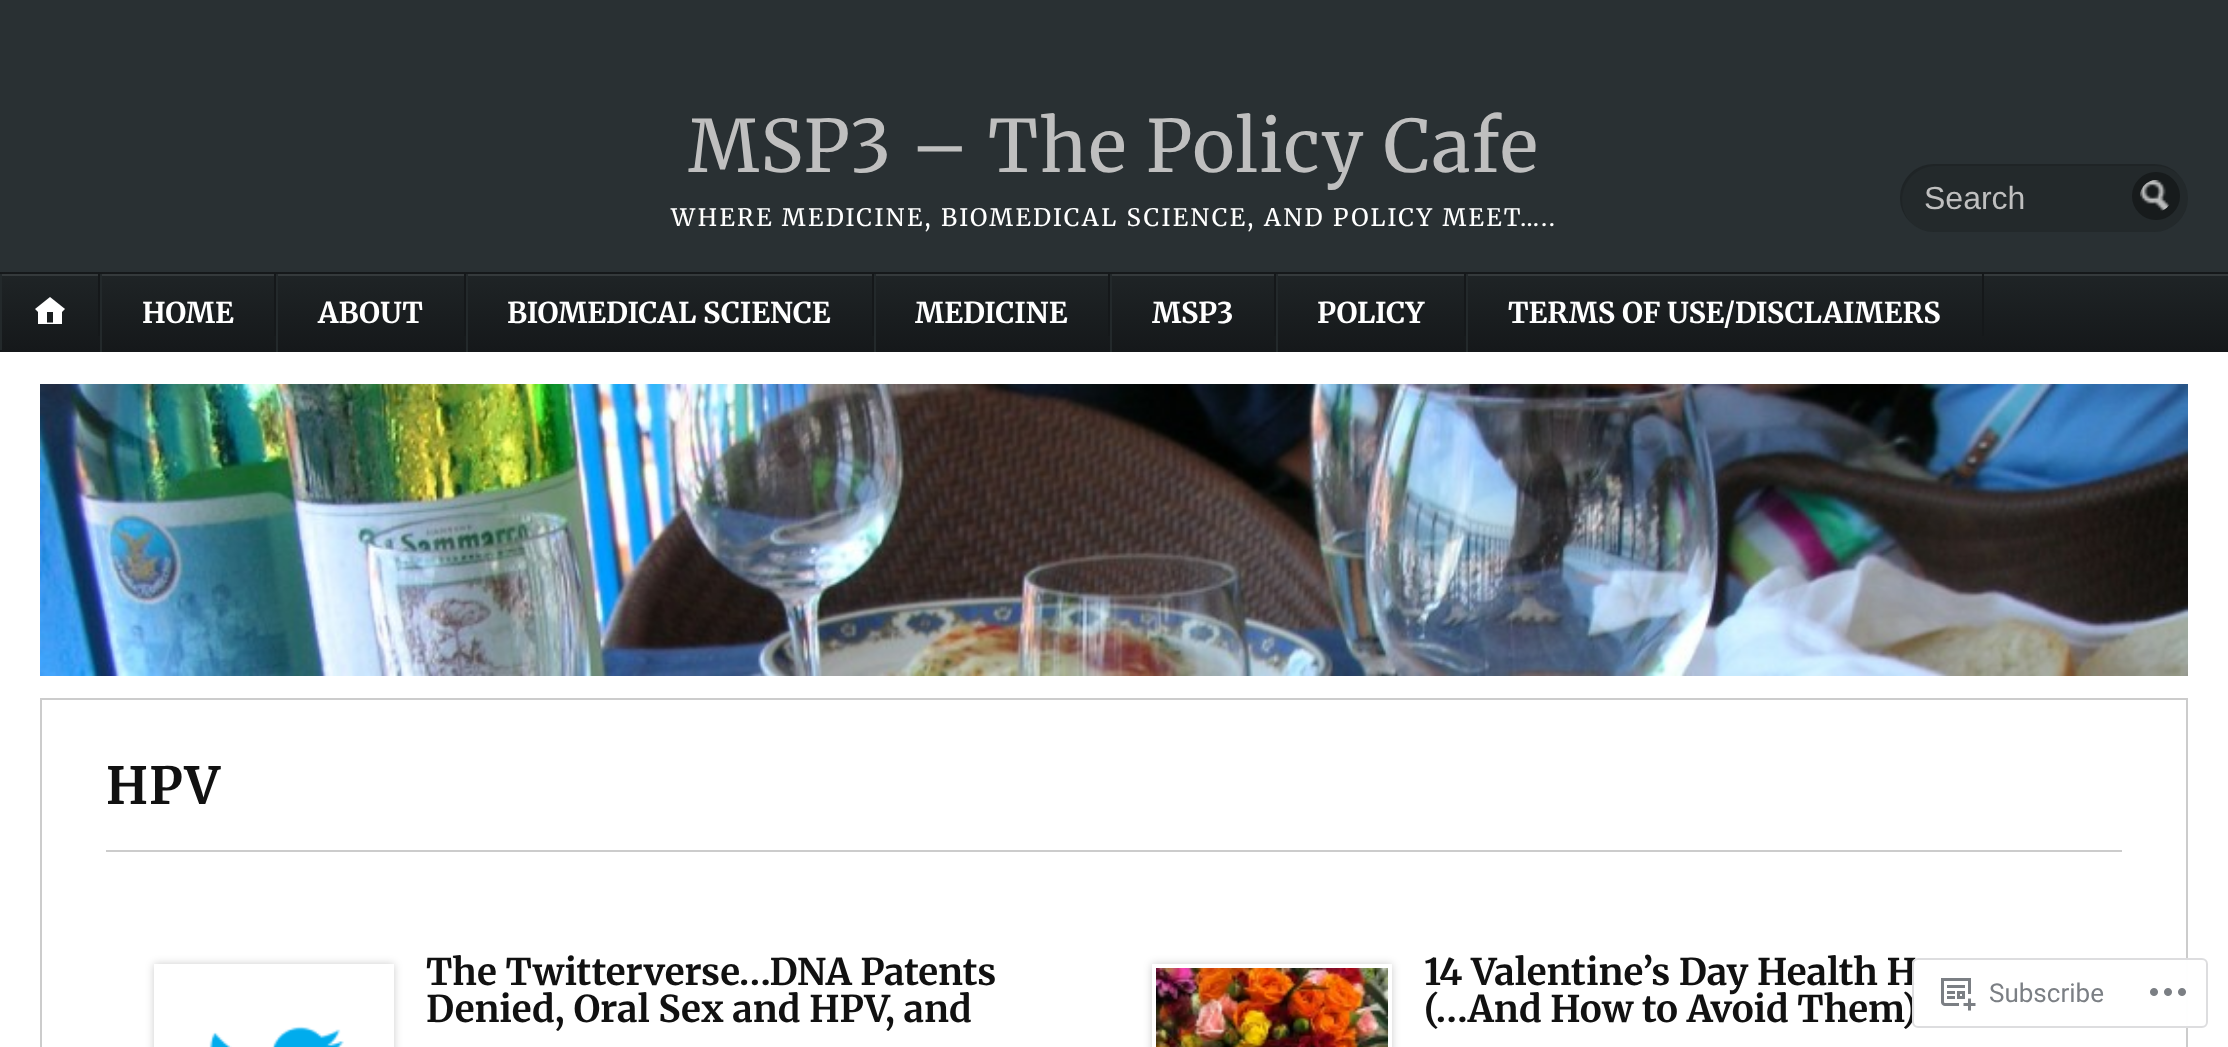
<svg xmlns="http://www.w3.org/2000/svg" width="2228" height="1047">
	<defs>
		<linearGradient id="g1" gradientUnits="userSpaceOnUse" x1="1114" y1="196" x2="1114" y2="274"><stop offset="0" stop-color="#1F2426" /><stop offset="1" stop-color="#15181A" /></linearGradient>
		<linearGradient id="g2" gradientUnits="userSpaceOnUse" x1="1114" y1="274" x2="1114" y2="352"><stop offset="0" stop-color="#1F2426" /><stop offset="1" stop-color="#15181A" /></linearGradient>
		<clipPath id="clip1"><rect x="0" y="274" width="2228" height="78" /></clipPath>
		<clipPath id="clip2"><path d="M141 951H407V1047H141ZM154 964H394V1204H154Z" clip-rule="evenodd" /></clipPath>
		<clipPath id="clip3"><path d="M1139 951H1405V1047H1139ZM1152 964H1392V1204H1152Z" clip-rule="evenodd" /></clipPath>
	</defs>
	<rect width="100%" height="100%" fill="#293033" />
	<text x="688" y="172" font-family="Merriweather" font-size="72" letter-spacing="1.4" fill="#BFBFBF">MSP3 – The Policy Cafe</text>
	<text x="671" y="226" font-family="Merriweather" font-size="24" letter-spacing="2.4" fill="#FFFFFF">WHERE MEDICINE, BIOMEDICAL SCIENCE, AND POLICY MEET…..</text>
	<rect x="1900" y="164" width="288" height="68" rx="34" fill="#23292B" />
	<path d="M1936 166H2156C2164 166 2172 169 2178 174C2172 168 2163 164 2154 164H1934C1915 164 1900 179 1900 198C1900 207 1904 216 1910 222C1892 200 1907 166 1936 166Z" fill="#000000" fill-opacity="0.1" />
	<text x="1924" y="209" font-family="Liberation Sans" font-size="32" fill="#BFBFBF">Search</text>
	<circle cx="2156" cy="196" r="24" fill="#171B1C" />
	<image x="2140" y="180" width="30" height="31" href="assets/img1.png" />
	<rect x="0" y="272" width="2228" height="2" fill="url(#g1)" />
	<rect x="0" y="276" width="2228" height="76" fill="url(#g2)" />
	<g clip-path="url(#clip1)">
		<path d="M-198 76H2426V550H-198ZM0 276H2228C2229 276 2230 277 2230 278V356C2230 357 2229 358 2228 358H0C-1 358-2 357-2 356V278C-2 277-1 276 0 276Z" fill="#353A3C" fill-rule="evenodd" />
	</g>
	<rect x="98" y="274" width="2" height="62" fill="#15181A" />
	<rect x="0" y="274" width="2" height="76" fill="#23292B" />
	<image x="35" y="297" width="30" height="27" href="assets/img2.png" />
	<rect x="274" y="274" width="2" height="62" fill="#15181A" />
	<rect x="100" y="274" width="2" height="78" fill="#23292B" />
	<text x="142" y="323" font-family="Merriweather" font-size="28.75" font-weight="700" fill="#FFFFFF">HOME</text>
	<rect x="464" y="274" width="2" height="62" fill="#15181A" />
	<rect x="276" y="274" width="2" height="78" fill="#23292B" />
	<text x="318" y="323" font-family="Merriweather" font-size="28.75" font-weight="700" fill="#FFFFFF">ABOUT</text>
	<rect x="872" y="274" width="2" height="62" fill="#15181A" />
	<rect x="466" y="274" width="2" height="78" fill="#23292B" />
	<text x="507" y="323" font-family="Merriweather" font-size="28.75" font-weight="700" fill="#FFFFFF">BIOMEDICAL SCIENCE</text>
	<rect x="1108" y="274" width="2" height="62" fill="#15181A" />
	<rect x="874" y="274" width="2" height="78" fill="#23292B" />
	<text x="915" y="323" font-family="Merriweather" font-size="28.75" font-weight="700" fill="#FFFFFF">MEDICINE</text>
	<rect x="1274" y="274" width="2" height="62" fill="#15181A" />
	<rect x="1110" y="274" width="2" height="78" fill="#23292B" />
	<text x="1152" y="323" font-family="Merriweather" font-size="28.75" font-weight="700" fill="#FFFFFF">MSP3</text>
	<rect x="1464" y="274" width="2" height="62" fill="#15181A" />
	<rect x="1276" y="274" width="2" height="78" fill="#23292B" />
	<text x="1317" y="323" font-family="Merriweather" font-size="28.75" font-weight="700" fill="#FFFFFF">POLICY</text>
	<rect x="1982" y="274" width="2" height="62" fill="#15181A" />
	<rect x="1466" y="274" width="2" height="78" fill="#23292B" />
	<text x="1508" y="323" font-family="Merriweather" font-size="28.75" font-weight="700" fill="#FFFFFF">TERMS OF USE/DISCLAIMERS</text>
	<rect x="0" y="352" width="2228" height="695" fill="#FFFFFF" />
	<image x="40" y="384" width="2148" height="292" href="assets/img3.png" />
	<rect x="41" y="699" width="2146" height="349" fill="none" stroke="#CCCCCC" stroke-width="2" />
	<rect x="106" y="850" width="2016" height="2" fill="#CCCCCC" />
	<text x="106" y="804" font-family="Merriweather" font-size="51" font-weight="700" letter-spacing="1" fill="#111111">HPV</text>
	<g clip-path="url(#clip2)">
		<rect x="154" y="964" width="240" height="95" fill="#000000" fill-opacity="0.2" filter="blur(4px)" />
	</g>
	<image x="209" y="1026" width="135" height="21" href="assets/img4.png" />
	<g font-family="Merriweather" font-size="36.75" font-weight="700" fill="#111111">
		<text x="426" y="985">The Twitterverse…DNA Patents</text>
		<text x="426" y="1022">Denied, Oral Sex and HPV, and</text>
	</g>
	<g clip-path="url(#clip3)">
		<rect x="1152" y="964" width="240" height="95" fill="#000000" fill-opacity="0.2" filter="blur(4px)" />
	</g>
	<image x="1156" y="968" width="232" height="79" href="assets/img5.png" />
	<g font-family="Merriweather" font-size="36.75" font-weight="700" fill="#111111">
		<text x="1424" y="985">14 Valentine’s Day Health H</text>
		<text x="1424" y="1022">(…And How to Avoid Them)</text>
	</g>
	<rect x="1912" y="958" width="296" height="70" rx="6" fill="#FFFFFF" fill-opacity="0.98" />
	<rect x="1913" y="959" width="294" height="68" rx="5" fill="none" stroke="#DCDCDE" stroke-opacity="0.98" stroke-width="2" />
	<image x="1941" y="978" width="35" height="33" href="assets/img6.png" />
	<text x="1989" y="1002" font-family="Roboto" font-size="26" fill="#7B7F84">Subscribe</text>
	<image x="2150" y="988" width="36" height="8" href="assets/img7.png" />
</svg>
